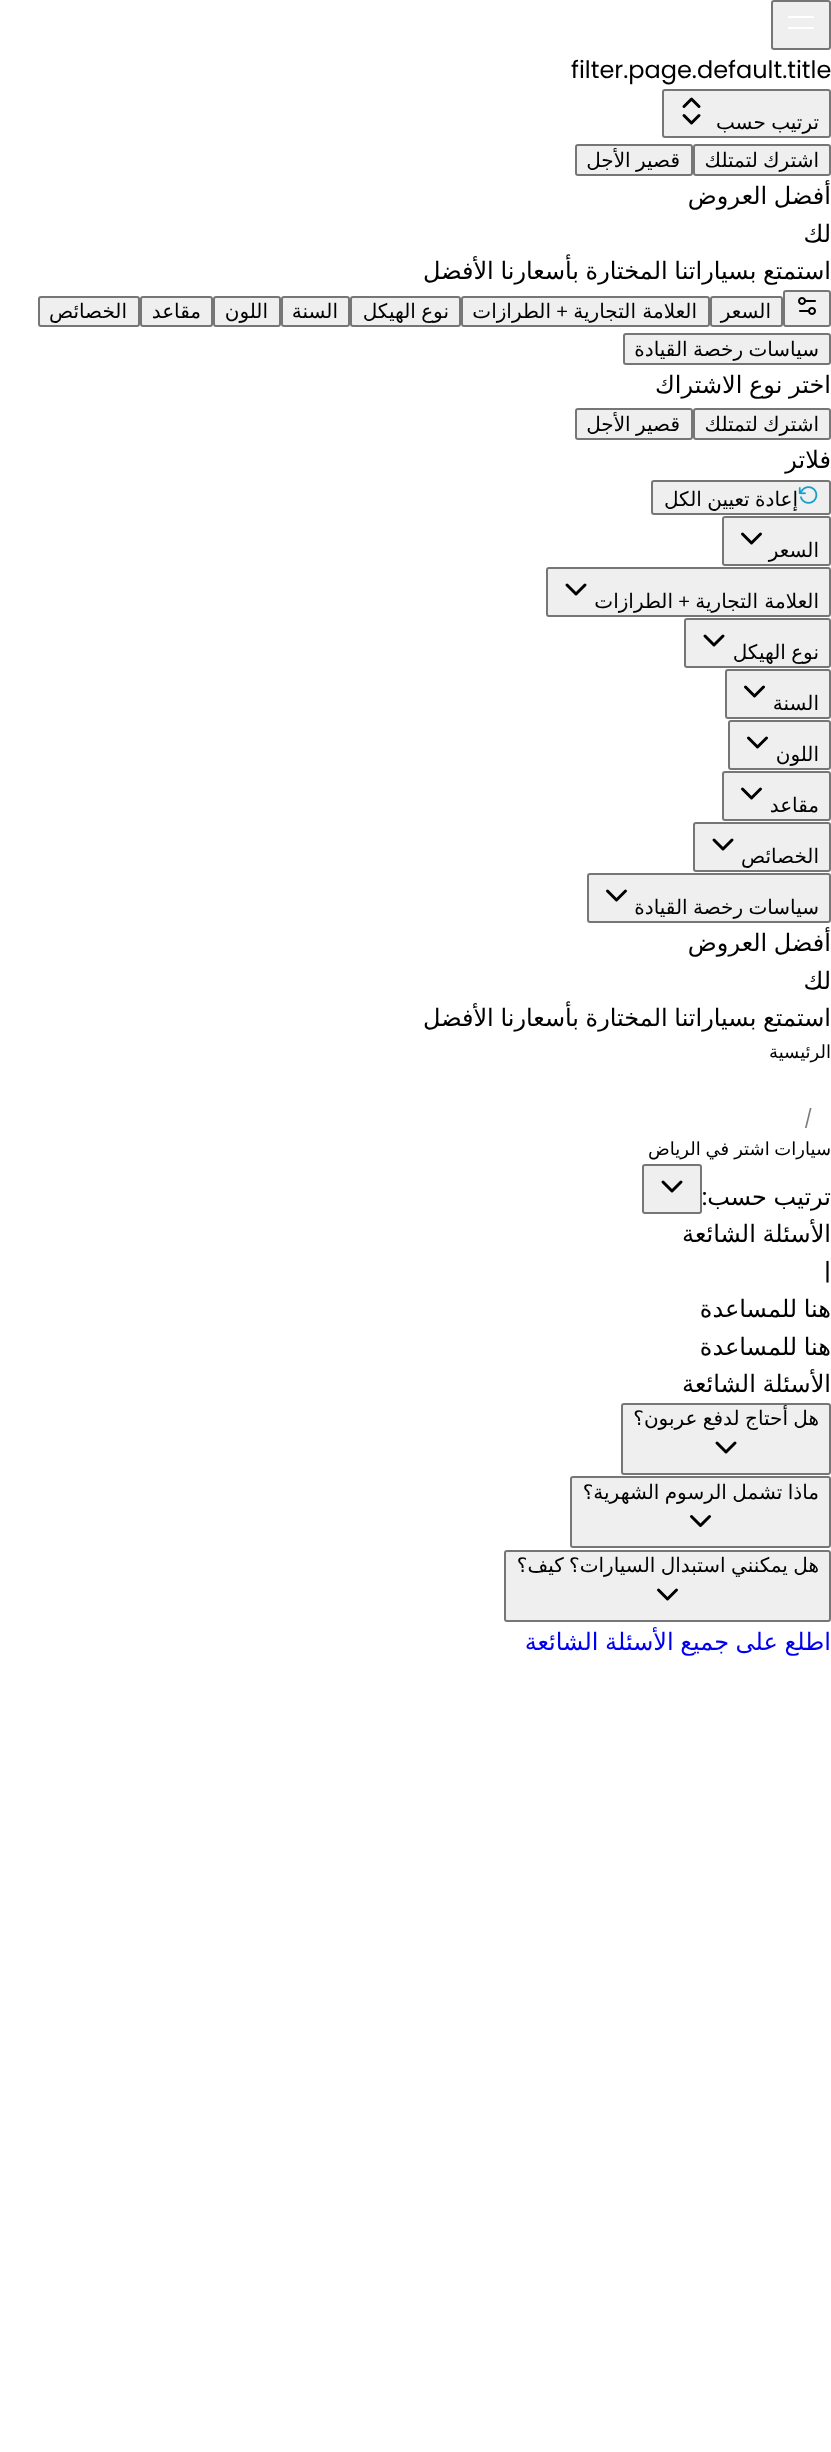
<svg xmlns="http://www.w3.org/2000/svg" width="831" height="2452">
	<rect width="100%" height="100%" fill="#FFFFFF" />
	<rect x="772" y="1" width="58" height="48" rx="2" fill="#EFEFEF" stroke="#767676" stroke-width="2" />
	<path d="M789 17H813M789 28H813" fill="none" stroke="#FFFFFF" stroke-width="2.2" stroke-linecap="round" stroke-linejoin="round" />
	<text x="571" y="78" font-family="Poppins" font-size="24" fill="#000000">filter.page.default.title</text>
	<rect x="663" y="90" width="167" height="47" rx="2" fill="#EFEFEF" stroke="#767676" stroke-width="2" />
	<path d="M684 115.5L691.5 123L699 115.5M684 106.5L691.5 99L699 106.5" fill="none" stroke="#000000" stroke-width="3" stroke-linecap="round" stroke-linejoin="round" />
	<text x="819" y="129" word-spacing="-1" font-family="DejaVu Sans" font-size="20" direction="rtl" fill="#000000">ترتيب حسب</text>
	<rect x="694" y="145" width="136" height="30" rx="2" fill="#EFEFEF" stroke="#767676" stroke-width="2" />
	<text x="819" y="167" word-spacing="-1" font-family="DejaVu Sans" font-size="20" direction="rtl" fill="#000000">اشترك لتمتلك</text>
	<rect x="576" y="145" width="116" height="30" rx="2" fill="#EFEFEF" stroke="#767676" stroke-width="2" />
	<text x="680" y="167" word-spacing="-1" font-family="DejaVu Sans" font-size="20" direction="rtl" fill="#000000">قصير الأجل</text>
	<g font-family="DejaVu Sans" font-size="24" direction="rtl" fill="#000000">
		<text x="831" y="204" word-spacing="-1">أفضل العروض</text>
		<text x="831" y="242">لك</text>
		<text x="831" y="279" word-spacing="-1">استمتع بسياراتنا المختارة بأسعارنا الأفضل</text>
	</g>
	<rect x="784" y="291" width="46" height="35" rx="2" fill="#EFEFEF" stroke="#767676" stroke-width="2" />
	<image x="798" y="297" width="18" height="18" href="assets/img1.png" />
	<rect x="711" y="297" width="71" height="29" rx="2" fill="#EFEFEF" stroke="#767676" stroke-width="2" />
	<text x="771" y="318" font-family="DejaVu Sans" font-size="20" direction="rtl" fill="#000000">السعر</text>
	<rect x="462" y="297" width="247" height="29" rx="2" fill="#EFEFEF" stroke="#767676" stroke-width="2" />
	<text x="697" y="318" font-family="DejaVu Sans" font-size="20" direction="rtl" fill="#000000">العلامة التجارية</text>
	<text x="568" y="318" font-family="Liberation Sans" font-size="20" direction="rtl" fill="#000000">+</text>
	<text x="551" y="318" font-family="DejaVu Sans" font-size="20" direction="rtl" fill="#000000">الطرازات</text>
	<rect x="351" y="297" width="109" height="29" rx="2" fill="#EFEFEF" stroke="#767676" stroke-width="2" />
	<text x="449" y="318" word-spacing="-1" font-family="DejaVu Sans" font-size="20" direction="rtl" fill="#000000">نوع الهيكل</text>
	<rect x="282" y="297" width="67" height="29" rx="2" fill="#EFEFEF" stroke="#767676" stroke-width="2" />
	<text x="338" y="318" font-family="DejaVu Sans" font-size="20" direction="rtl" fill="#000000">السنة</text>
	<rect x="214" y="297" width="66" height="29" rx="2" fill="#EFEFEF" stroke="#767676" stroke-width="2" />
	<text x="268" y="318" font-family="DejaVu Sans" font-size="20" direction="rtl" fill="#000000">اللون</text>
	<rect x="141" y="297" width="71" height="29" rx="2" fill="#EFEFEF" stroke="#767676" stroke-width="2" />
	<text x="201" y="318" font-family="DejaVu Sans" font-size="20" direction="rtl" fill="#000000">مقاعد</text>
	<rect x="39" y="297" width="100" height="29" rx="2" fill="#EFEFEF" stroke="#767676" stroke-width="2" />
	<text x="127" y="318" font-family="DejaVu Sans" font-size="20" direction="rtl" fill="#000000">الخصائص</text>
	<rect x="624" y="334" width="206" height="30" rx="2" fill="#EFEFEF" stroke="#767676" stroke-width="2" />
	<text x="819" y="356" word-spacing="-1" font-family="DejaVu Sans" font-size="20" direction="rtl" fill="#000000">سياسات رخصة القيادة</text>
	<text x="831" y="393" word-spacing="-1" font-family="DejaVu Sans" font-size="24" direction="rtl" fill="#000000">اختر نوع الاشتراك</text>
	<rect x="694" y="409" width="136" height="30" rx="2" fill="#EFEFEF" stroke="#767676" stroke-width="2" />
	<text x="819" y="431" word-spacing="-1" font-family="DejaVu Sans" font-size="20" direction="rtl" fill="#000000">اشترك لتمتلك</text>
	<rect x="576" y="409" width="116" height="30" rx="2" fill="#EFEFEF" stroke="#767676" stroke-width="2" />
	<text x="680" y="431" word-spacing="-1" font-family="DejaVu Sans" font-size="20" direction="rtl" fill="#000000">قصير الأجل</text>
	<text x="831" y="468" font-family="DejaVu Sans" font-size="24" direction="rtl" fill="#000000">فلاتر</text>
	<rect x="652" y="481" width="178" height="33" rx="2" fill="#EFEFEF" stroke="#767676" stroke-width="2" />
	<image x="798" y="486" width="20" height="18" href="assets/img2.png" />
	<text x="798" y="506" word-spacing="-1" font-family="DejaVu Sans" font-size="20" direction="rtl" fill="#000000">إعادة تعيين الكل</text>
	<rect x="723" y="517" width="107" height="48" rx="2" fill="#EFEFEF" stroke="#767676" stroke-width="2" />
	<path d="M742.5 534L751.5 543L760.5 534" fill="none" stroke="#000000" stroke-width="3" stroke-linecap="round" stroke-linejoin="round" />
	<text x="819" y="557" font-family="DejaVu Sans" font-size="20" direction="rtl" fill="#000000">السعر</text>
	<rect x="547" y="568" width="283" height="48" rx="2" fill="#EFEFEF" stroke="#767676" stroke-width="2" />
	<path d="M567 585L576 594L585 585" fill="none" stroke="#000000" stroke-width="3" stroke-linecap="round" stroke-linejoin="round" />
	<text x="819" y="608" font-family="DejaVu Sans" font-size="20" direction="rtl" fill="#000000">العلامة التجارية</text>
	<text x="690" y="608" font-family="Liberation Sans" font-size="20" direction="rtl" fill="#000000">+</text>
	<text x="673" y="608" font-family="DejaVu Sans" font-size="20" direction="rtl" fill="#000000">الطرازات</text>
	<rect x="685" y="619" width="145" height="48" rx="2" fill="#EFEFEF" stroke="#767676" stroke-width="2" />
	<path d="M705 636L714 645L723 636" fill="none" stroke="#000000" stroke-width="3" stroke-linecap="round" stroke-linejoin="round" />
	<text x="819" y="659" word-spacing="-1" font-family="DejaVu Sans" font-size="20" direction="rtl" fill="#000000">نوع الهيكل</text>
	<rect x="726" y="670" width="104" height="48" rx="2" fill="#EFEFEF" stroke="#767676" stroke-width="2" />
	<path d="M745.5 687L754.5 696L763.5 687" fill="none" stroke="#000000" stroke-width="3" stroke-linecap="round" stroke-linejoin="round" />
	<text x="819" y="710" font-family="DejaVu Sans" font-size="20" direction="rtl" fill="#000000">السنة</text>
	<rect x="729" y="721" width="101" height="48" rx="2" fill="#EFEFEF" stroke="#767676" stroke-width="2" />
	<path d="M748.5 738L757.5 747L766.5 738" fill="none" stroke="#000000" stroke-width="3" stroke-linecap="round" stroke-linejoin="round" />
	<text x="819" y="761" font-family="DejaVu Sans" font-size="20" direction="rtl" fill="#000000">اللون</text>
	<rect x="723" y="772" width="107" height="48" rx="2" fill="#EFEFEF" stroke="#767676" stroke-width="2" />
	<path d="M742.5 789L751.5 798L760.5 789" fill="none" stroke="#000000" stroke-width="3" stroke-linecap="round" stroke-linejoin="round" />
	<text x="819" y="812" font-family="DejaVu Sans" font-size="20" direction="rtl" fill="#000000">مقاعد</text>
	<rect x="694" y="823" width="136" height="48" rx="2" fill="#EFEFEF" stroke="#767676" stroke-width="2" />
	<path d="M714 840L723 849L732 840" fill="none" stroke="#000000" stroke-width="3" stroke-linecap="round" stroke-linejoin="round" />
	<text x="819" y="863" font-family="DejaVu Sans" font-size="20" direction="rtl" fill="#000000">الخصائص</text>
	<rect x="588" y="874" width="242" height="48" rx="2" fill="#EFEFEF" stroke="#767676" stroke-width="2" />
	<path d="M607.5 891L616.5 900L625.5 891" fill="none" stroke="#000000" stroke-width="3" stroke-linecap="round" stroke-linejoin="round" />
	<text x="819" y="914" word-spacing="-1" font-family="DejaVu Sans" font-size="20" direction="rtl" fill="#000000">سياسات رخصة القيادة</text>
	<g font-family="DejaVu Sans" font-size="24" direction="rtl" fill="#000000">
		<text x="831" y="951" word-spacing="-1">أفضل العروض</text>
		<text x="831" y="989">لك</text>
		<text x="831" y="1026" word-spacing="-1">استمتع بسياراتنا المختارة بأسعارنا الأفضل</text>
	</g>
	<text x="831" y="1058" font-family="DejaVu Sans" font-size="18" direction="rtl" fill="#000000">الرئيسية</text>
	<text x="804" y="1125" font-family="Poppins" font-size="18" fill="#7A7A7A">/</text>
	<g font-family="DejaVu Sans" font-size="18" direction="rtl" fill="#000000">
		<text x="831" y="1155" word-spacing="-1">سيارات اشتر</text>
		<text x="729" y="1155" word-spacing="-1">في الرياض</text>
	</g>
	<text x="831" y="1205" word-spacing="-1" font-family="DejaVu Sans" font-size="24" direction="rtl" fill="#000000">ترتيب حسب</text>
	<text x="702" y="1205" font-family="Poppins" font-size="24" fill="#000000">:</text>
	<rect x="643" y="1165" width="58" height="48" rx="2" fill="#EFEFEF" stroke="#767676" stroke-width="2" />
	<path d="M663 1182L672 1191L681 1182" fill="none" stroke="#000000" stroke-width="3" stroke-linecap="round" stroke-linejoin="round" />
	<text x="831" y="1242" word-spacing="-1" font-family="DejaVu Sans" font-size="24" direction="rtl" fill="#000000">الأسئلة الشائعة</text>
	<text x="824" y="1280" font-family="Poppins" font-size="24" fill="#000000">|</text>
	<g font-family="DejaVu Sans" font-size="24" direction="rtl" fill="#000000">
		<text x="831" y="1317" word-spacing="-1">هنا للمساعدة</text>
		<text x="831" y="1355" word-spacing="-1">هنا للمساعدة</text>
		<text x="831" y="1392" word-spacing="-1">الأسئلة الشائعة</text>
	</g>
	<rect x="622" y="1404" width="208" height="70" rx="2" fill="#EFEFEF" stroke="#767676" stroke-width="2" />
	<text x="819" y="1425" word-spacing="-1" font-family="DejaVu Sans" font-size="20" direction="rtl" fill="#000000">هل أحتاج لدفع عربون؟</text>
	<path d="M717 1443L726 1452L735 1443" fill="none" stroke="#000000" stroke-width="3" stroke-linecap="round" stroke-linejoin="round" />
	<rect x="571" y="1477" width="259" height="70" rx="2" fill="#EFEFEF" stroke="#767676" stroke-width="2" />
	<text x="819" y="1499" word-spacing="-1" font-family="DejaVu Sans" font-size="20" direction="rtl" fill="#000000">ماذا تشمل الرسوم الشهرية؟</text>
	<path d="M691.5 1516.5L700.5 1525.5L709.5 1516.5" fill="none" stroke="#000000" stroke-width="3" stroke-linecap="round" stroke-linejoin="round" />
	<rect x="505" y="1551" width="325" height="70" rx="2" fill="#EFEFEF" stroke="#767676" stroke-width="2" />
	<text x="819" y="1572" word-spacing="-1" font-family="DejaVu Sans" font-size="20" direction="rtl" fill="#000000">هل يمكنني استبدال السيارات؟ كيف؟</text>
	<path d="M658.5 1590L667.5 1599L676.5 1590" fill="none" stroke="#000000" stroke-width="3" stroke-linecap="round" stroke-linejoin="round" />
	<text x="831" y="1650" word-spacing="-1" font-family="DejaVu Sans" font-size="24" direction="rtl" fill="#0000EE">اطلع على جميع الأسئلة الشائعة</text>
</svg>
